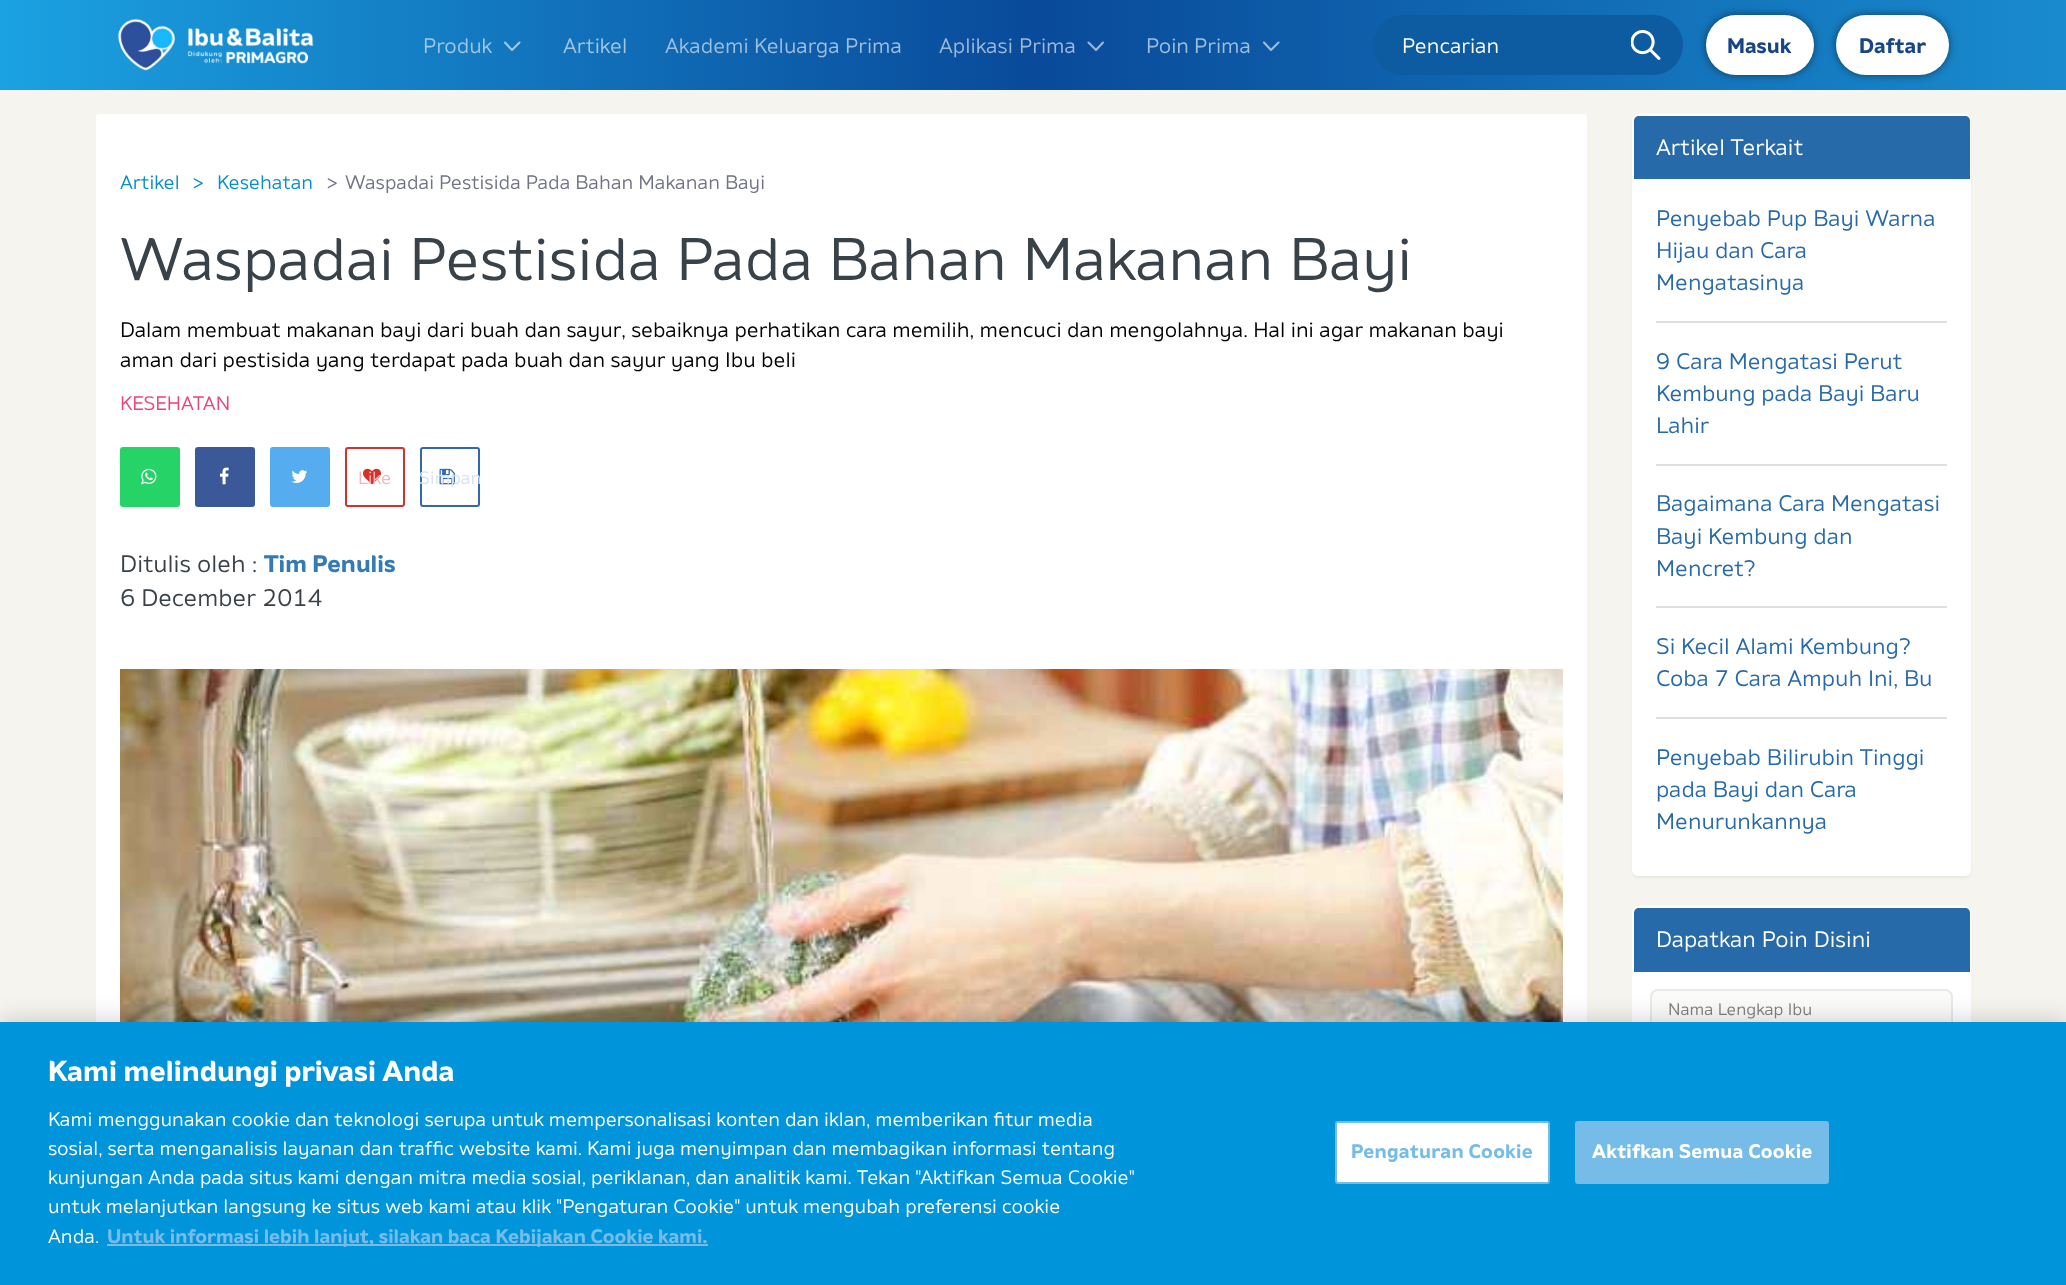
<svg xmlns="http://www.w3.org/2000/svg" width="2066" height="1285">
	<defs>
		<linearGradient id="g1" gradientUnits="userSpaceOnUse" x1="0" y1="45" x2="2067" y2="45"><stop offset="0" stop-color="#1BA2E2" /><stop offset="0.5" stop-color="#094A9A" /><stop offset="1" stop-color="#198BCE" /></linearGradient>
	</defs>
	<rect width="100%" height="100%" fill="#F5F4EF" />
	<rect x="0" y="0" width="2066" height="90" fill="url(#g1)" />
	<image x="118" y="19" width="196" height="52" href="assets/img1.png" />
	<text x="423" y="53" font-family="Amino" font-size="21" fill="#A0C6E3">Produk</text>
	<path d="M519.5 42.5L512 50L505 42.5" fill="none" stroke="#A0C8E5" stroke-width="2.1" stroke-linecap="round" stroke-linejoin="round" />
	<text x="563" y="53" font-family="Amino" font-size="21" fill="#A0C6E3">Artikel</text>
	<text x="665" y="53" font-family="Amino" font-size="21" fill="#9EBFDE">Akademi Keluarga Prima</text>
	<g font-family="Amino" font-size="21" fill="#9DB9D8">
		<text x="939" y="53">Aplikasi</text>
		<text x="1019" y="53">Prima</text>
	</g>
	<path d="M1103 42.5L1096 50L1088.5 42.5" fill="none" stroke="#9DB8D8" stroke-width="2.1" stroke-linecap="round" stroke-linejoin="round" />
	<g font-family="Amino" font-size="21" fill="#9EBFDE">
		<text x="1146" y="53">Poin</text>
		<text x="1194" y="53">Prima</text>
	</g>
	<path d="M1278.5 42.5L1271 50L1264 42.5" fill="none" stroke="#9EBDDB" stroke-width="2.1" stroke-linecap="round" stroke-linejoin="round" />
	<rect x="1373" y="15" width="310" height="60" rx="30" fill="#0D5BA1" />
	<text x="1402" y="53" font-family="Amino" font-size="21" fill="#FBFBF9">Pencarian</text>
	<image x="1631" y="30" width="30" height="30" href="assets/img2.png" />
	<rect x="1706" y="15" width="108" height="60" rx="30" fill="#000000" fill-opacity="0.5" filter="blur(4px)" />
	<rect x="1706" y="15" width="108" height="60" rx="30" fill="#FFFFFF" />
	<text x="1727" y="53" font-family="Amino" font-size="21" font-weight="700" fill="#184586">Masuk</text>
	<rect x="1836" y="15" width="113" height="60" rx="30" fill="#000000" fill-opacity="0.5" filter="blur(4px)" />
	<rect x="1836" y="15" width="113" height="60" rx="30" fill="#FFFFFF" />
	<text x="1859" y="53" font-family="Amino" font-size="21" font-weight="700" fill="#184586">Daftar</text>
	<rect x="96" y="114" width="1491" height="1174" rx="3" fill="#FFFFFF" />
	<g font-family="Amino" font-size="19.5" fill="#098ECC">
		<text x="120" y="189">Artikel</text>
		<text x="192" y="189">&gt;</text>
		<text x="217" y="189">Kesehatan</text>
	</g>
	<g font-family="Amino" font-size="19.5" fill="#727385">
		<text x="326" y="189">&gt;</text>
		<text x="345" y="189">Waspadai Pestisida Pada Bahan Makanan Bayi</text>
	</g>
	<text x="120" y="280" font-family="Amino" font-size="60" fill="#3A4249">Waspadai Pestisida Pada Bahan Makanan Bayi</text>
	<g font-family="Amino" font-size="21" fill="#000000">
		<text x="120" y="337">Dalam membuat makanan bayi dari buah dan sayur, sebaiknya perhatikan cara memilih, mencuci dan mengolahnya. Hal ini agar makanan bayi</text>
		<text x="120" y="367">aman dari pestisida yang terdapat pada buah dan sayur yang Ibu beli</text>
	</g>
	<text x="120" y="410" font-family="Amino" font-size="19.5" fill="#EA4478">KESEHATAN</text>
	<rect x="120" y="447" width="60" height="60" rx="3" fill="#25D366" />
	<image x="141" y="468" width="16" height="17" href="assets/img3.png" />
	<rect x="195" y="447" width="60" height="60" rx="3" fill="#3B5998" />
	<image x="219" y="467" width="10" height="18" href="assets/img4.png" />
	<rect x="270" y="447" width="60" height="60" rx="3" fill="#55ACEE" />
	<image x="291" y="470" width="17" height="13" href="assets/img5.png" />
	<rect x="346" y="448" width="58" height="58" rx="2" fill="none" stroke="#D6302A" stroke-width="2" />
	<image x="363" y="468" width="18" height="17" href="assets/img6.png" />
	<text x="358" y="484" font-family="Amino" font-size="18" fill="#F1B8B6">Like</text>
	<rect x="421" y="448" width="58" height="58" rx="2" fill="none" stroke="#3267B2" stroke-width="2" />
	<image x="439" y="468" width="16" height="17" href="assets/img7.png" />
	<text x="419" y="484" font-family="Amino" font-size="18" fill="#D8E2F0">Simpan</text>
	<text x="120" y="572" font-family="Amino" font-size="24" fill="#3A4249">Ditulis oleh :</text>
	<text x="264" y="572" font-family="Amino" font-size="24" font-weight="700" fill="#337AB7">Tim Penulis</text>
	<text x="120" y="606" font-family="Amino" font-size="24" fill="#3A4249">6 December 2014</text>
	<image x="120" y="669" width="1443" height="353" href="assets/img8.png" />
	<rect x="1632" y="116" width="339" height="762" rx="6" fill="#000000" fill-opacity="0.05" filter="blur(1px)" />
	<rect x="1632" y="114" width="339" height="762" rx="6" fill="#FFFFFF" />
	<path d="M1639 116H1965C1968 116 1970 118 1970 121V179H1634V121C1634 118 1636 116 1639 116Z" fill="#276AA9" />
	<text x="1656" y="155" font-family="Amino" font-size="22.5" fill="#FFFFFF">Artikel Terkait</text>
	<rect x="1656" y="321" width="291" height="2" fill="#DEDFE2" />
	<g font-family="Amino" font-size="22.5" fill="#276AA9">
		<text x="1656" y="226">Penyebab Pup Bayi Warna</text>
		<text x="1656" y="258">Hijau dan Cara</text>
		<text x="1656" y="290">Mengatasinya</text>
	</g>
	<rect x="1656" y="464" width="291" height="2" fill="#DEDFE2" />
	<g font-family="Amino" font-size="22.5" fill="#276AA9">
		<text x="1656" y="369">9 Cara Mengatasi Perut</text>
		<text x="1656" y="401">Kembung pada Bayi Baru</text>
		<text x="1656" y="433">Lahir</text>
	</g>
	<rect x="1656" y="606" width="291" height="2" fill="#DEDFE2" />
	<g font-family="Amino" font-size="22.5" fill="#276AA9">
		<text x="1656" y="511">Bagaimana Cara Mengatasi</text>
		<text x="1656" y="544">Bayi Kembung dan</text>
		<text x="1656" y="576">Mencret?</text>
	</g>
	<rect x="1656" y="717" width="291" height="2" fill="#DEDFE2" />
	<g font-family="Amino" font-size="22.5" fill="#276AA9">
		<text x="1656" y="654">Si Kecil Alami Kembung?</text>
		<text x="1656" y="686">Coba 7 Cara Ampuh Ini, Bu</text>
		<text x="1656" y="765">Penyebab Bilirubin Tinggi</text>
		<text x="1656" y="797">pada Bayi dan Cara</text>
		<text x="1656" y="829">Menurunkannya</text>
	</g>
	<rect x="1632" y="906" width="339" height="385" rx="6" fill="#FFFFFF" />
	<path d="M1639 908H1965C1968 908 1970 910 1970 913V972H1634V913C1634 910 1636 908 1639 908Z" fill="#276AA9" />
	<text x="1656" y="947" font-family="Amino" font-size="22.5" fill="#FFFFFF">Dapatkan Poin Disini</text>
	<rect x="1651" y="990" width="301" height="49" rx="7" fill="#FBFBF9" stroke="#E8EAEA" stroke-width="2" />
	<text x="1668" y="1015" font-family="Amino" font-size="16.75" fill="#808080">Nama Lengkap Ibu</text>
	<rect x="0" y="1022" width="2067" height="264" fill="#000000" fill-opacity="0.2" filter="blur(13.5px)" />
	<rect x="0" y="1022" width="2066" height="263" fill="#0095DA" />
	<text x="48" y="1081" font-family="Amino" font-size="28.75" font-weight="700" fill="#FFFFFF">Kami melindungi privasi Anda</text>
	<g font-family="Amino" font-size="19.5" fill="#FFFFFF">
		<text x="48" y="1126">Kami menggunakan cookie dan teknologi serupa untuk mempersonalisasi konten dan iklan, memberikan fitur media</text>
		<text x="48" y="1155">sosial, serta menganalisis layanan dan traffic website kami. Kami juga menyimpan dan membagikan informasi tentang</text>
		<text x="48" y="1184">kunjungan Anda pada situs kami dengan mitra media sosial, periklanan, dan analitik kami. Tekan "Aktifkan Semua Cookie"</text>
		<text x="48" y="1213">untuk melanjutkan langsung ke situs web kami atau klik "Pengaturan Cookie" untuk mengubah preferensi cookie</text>
		<text x="48" y="1243">Anda.</text>
	</g>
	<rect x="107" y="1244" width="601" height="2" fill="#75BDE8" />
	<text x="107" y="1243" font-family="Amino" font-size="19.5" font-weight="700" fill="#75BDE8">Untuk informasi lebih lanjut, silakan baca Kebijakan Cookie kami.</text>
	<rect x="1336" y="1122" width="213" height="61" rx="2" fill="#FFFFFF" stroke="#75BDE8" stroke-width="2" />
	<text x="1351" y="1158" font-family="Amino" font-size="19.5" font-weight="700" letter-spacing="0.2" fill="#75BDE8">Pengaturan Cookie</text>
	<rect x="1576" y="1122" width="252" height="61" rx="2" fill="#75BDE8" stroke="#75BDE8" stroke-width="2" />
	<text x="1592" y="1158" font-family="Amino" font-size="19.5" font-weight="700" letter-spacing="0.2" fill="#FFFFFF">Aktifkan Semua Cookie</text>
</svg>
